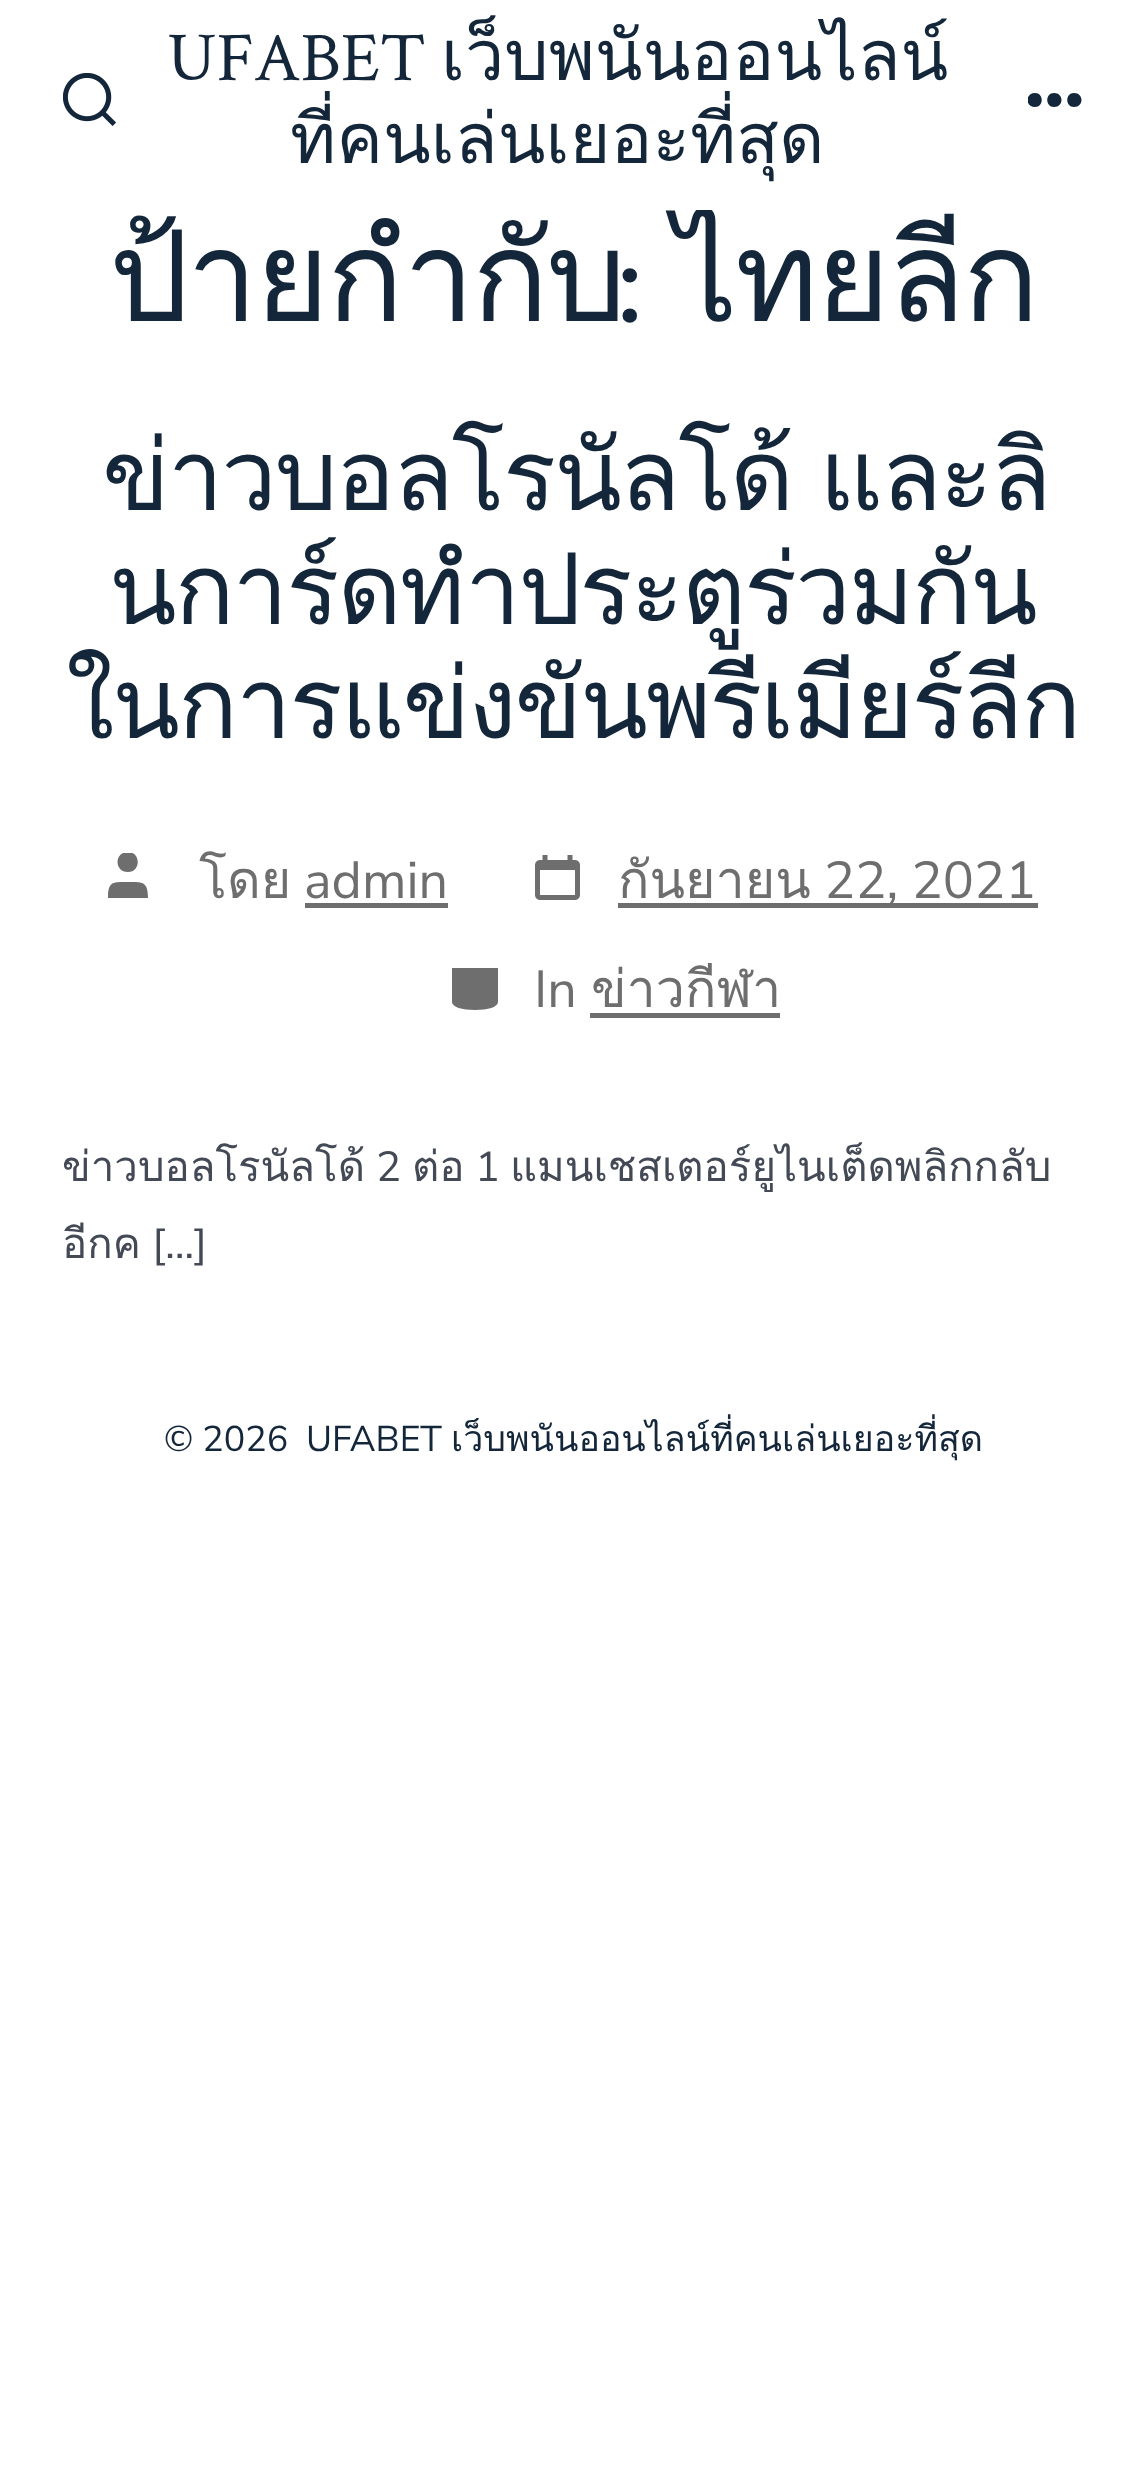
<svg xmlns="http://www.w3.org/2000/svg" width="1145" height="2474">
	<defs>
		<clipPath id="clip1"><rect x="1028" y="73" width="55" height="55" /></clipPath>
		<clipPath id="clip2"><rect x="0" y="210" width="1145" height="1073" /></clipPath>
		<clipPath id="clip3"><rect x="108" y="853" width="60" height="60" /></clipPath>
	</defs>
	<rect width="100%" height="100%" fill="#FFFFFF" />
	<image x="63" y="73" width="53" height="53" href="assets/img1.png" />
	<text x="167" y="80" font-family="Crimson Text" font-size="70" fill="#13263A">UFABET</text>
	<g font-family="Loma" font-size="70" fill="#13263A">
		<text x="441" y="80">เว็บพนันออนไลน์</text>
		<text x="290" y="163">ที่คนเล่นเยอะที่สุด</text>
	</g>
	<g clip-path="url(#clip1)">
		<path d="M1035 107C1025 107 1025 93 1035 93C1044 93 1044 107 1035 107ZM1054 107C1045 107 1045 93 1054 93C1064 93 1064 107 1054 107ZM1074 107C1065 107 1065 93 1074 93C1084 93 1084 107 1074 107Z" fill="#13263A" />
	</g>
	<text x="109" y="321" font-family="Loma" font-size="126.5" letter-spacing="-2.5" fill="#13263A">ป้ายกำกับ</text>
	<text x="615" y="321" font-family="Crimson Text" font-size="126.5" letter-spacing="-2.5" fill="#13263A">:</text>
	<g clip-path="url(#clip2)">
		<text x="674" y="321" font-family="Loma" font-size="126.5" letter-spacing="-2.5" fill="#13263A">ไทยลีก</text>
	</g>
	<g font-family="Loma" font-size="99" letter-spacing="-2" fill="#13263A">
		<text x="102" y="510" word-spacing="-4">ข่าวบอลโรนัลโด้ และลิ</text>
		<text x="109" y="624">นการ์ดทำประตูร่วมกัน</text>
		<text x="66" y="738">ในการแข่งขันพรีเมียร์ลีก</text>
	</g>
	<g clip-path="url(#clip3)">
		<path d="M148 898H108C108 881 113 882 128 882C142 882 148 881 148 898ZM128 872C114 872 114 852 128 852C141 852 141 872 128 872Z" fill="#6E6E6E" />
	</g>
	<text x="199" y="898" font-family="Loma" font-size="52" fill="#6E6E6E">โดย</text>
	<text x="304" y="898" font-family="Nunito Sans" font-size="52" fill="#6E6E6E">admin</text>
	<rect x="305" y="903" width="143" height="5" fill="#6E6E6E" />
	<image x="535" y="855" width="45" height="45" href="assets/img2.png" />
	<text x="618" y="898" font-family="Loma" font-size="52" fill="#6E6E6E">กันยายน</text>
	<rect x="618" y="903" width="420" height="5" fill="#6E6E6E" />
	<text x="824" y="898" font-family="Nunito Sans" font-size="52" fill="#6E6E6E">22, 2021</text>
	<path d="M452 968V1002C452 1007 462 1010 475 1010C488 1010 498 1007 498 1002V968" fill="#6E6E6E" />
	<text x="534" y="1007" font-family="Nunito Sans" font-size="52" fill="#6E6E6E">In</text>
	<text x="591" y="1007" font-family="Loma" font-size="52" fill="#6E6E6E">ข่าวกีฬา</text>
	<rect x="590" y="1013" width="190" height="5" fill="#6E6E6E" />
	<text x="62" y="1181" font-family="Loma" font-size="42" fill="#434A56">ข่าวบอลโรนัลโด้</text>
	<text x="376" y="1181" font-family="Nunito Sans" font-size="42" fill="#434A56">2</text>
	<text x="412" y="1181" font-family="Loma" font-size="42" fill="#434A56">ต่อ</text>
	<text x="475" y="1181" font-family="Nunito Sans" font-size="42" fill="#434A56">1</text>
	<g font-family="Loma" font-size="42" fill="#434A56">
		<text x="510" y="1181">แมนเชสเตอร์ยูไนเต็ดพลิกกลับ</text>
		<text x="62" y="1258">อีกค</text>
	</g>
	<text x="152" y="1258" font-family="Nunito Sans" font-size="42" fill="#434A56">[…]</text>
	<g font-family="Nunito Sans" font-size="35.75" fill="#13263A">
		<text x="164" y="1451">© 2026</text>
		<text x="306" y="1451">UFABET</text>
	</g>
	<text x="451" y="1451" font-family="Loma" font-size="35.75" fill="#13263A">เว็บพนันออนไลน์ที่คนเล่นเยอะที่สุด</text>
</svg>
